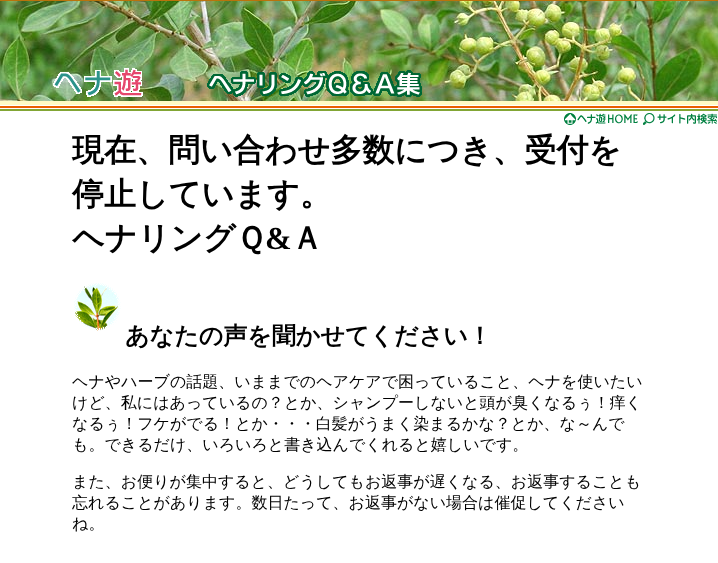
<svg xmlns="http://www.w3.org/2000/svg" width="718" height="563">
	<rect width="100%" height="100%" fill="#FFFFFF" />
	<rect x="0" y="0" width="718" height="1" fill="#B9730B" />
	<image x="0" y="1" width="718" height="100" href="assets/img1.png" />
	<image x="53" y="68" width="90" height="29" href="assets/img2.png" />
	<image x="207" y="70" width="215" height="27" href="assets/img3.png" />
	<rect x="0" y="101" width="718" height="4" fill="#FFFBC4" />
	<rect x="0" y="106" width="718" height="2" fill="#EA6000" />
	<rect x="0" y="109" width="718" height="2" fill="#82A635" />
	<image x="564" y="113" width="74" height="12" href="assets/img4.png" />
	<image x="643" y="113" width="74" height="12" href="assets/img5.png" />
	<g font-family="WenQuanYi Zen Hei" font-size="32" font-weight="700" fill="#000000">
		<text x="72" y="161">現在、問い合わせ多数につき、受付を</text>
		<text x="72" y="205">停止しています。</text>
		<text x="72" y="249">ヘナリングＱ</text>
	</g>
	<text x="265" y="249" font-family="Liberation Serif" font-size="32" font-weight="700" fill="#000000">&amp;</text>
	<text x="291" y="249" font-family="WenQuanYi Zen Hei" font-size="32" font-weight="700" fill="#000000">Ａ</text>
	<image x="74" y="283" width="47" height="48" href="assets/img6.png" />
	<text x="125" y="344" font-family="WenQuanYi Zen Hei" font-size="24" font-weight="700" fill="#000000">あなたの声を聞かせてください！</text>
	<g font-family="WenQuanYi Zen Hei" font-size="16" font-weight="500" fill="#000000">
		<text x="72" y="387">ヘナやハーブの話題、いままでのヘアケアで困っていること、ヘナを使いたい</text>
		<text x="72" y="408">けど、私にはあっているの？とか、シャンプーしないと頭が臭くなるぅ！痒く</text>
		<text x="72" y="429">なるぅ！フケがでる！とか・・・白髪がうまく染まるかな？とか、な～んで</text>
		<text x="72" y="450">も。できるだけ、いろいろと書き込んでくれると嬉しいです。</text>
		<text x="72" y="487">また、お便りが集中すると、どうしてもお返事が遅くなる、お返事することも</text>
		<text x="72" y="508">忘れることがあります。数日たって、お返事がない場合は催促してください</text>
		<text x="72" y="529">ね。</text>
	</g>
</svg>
